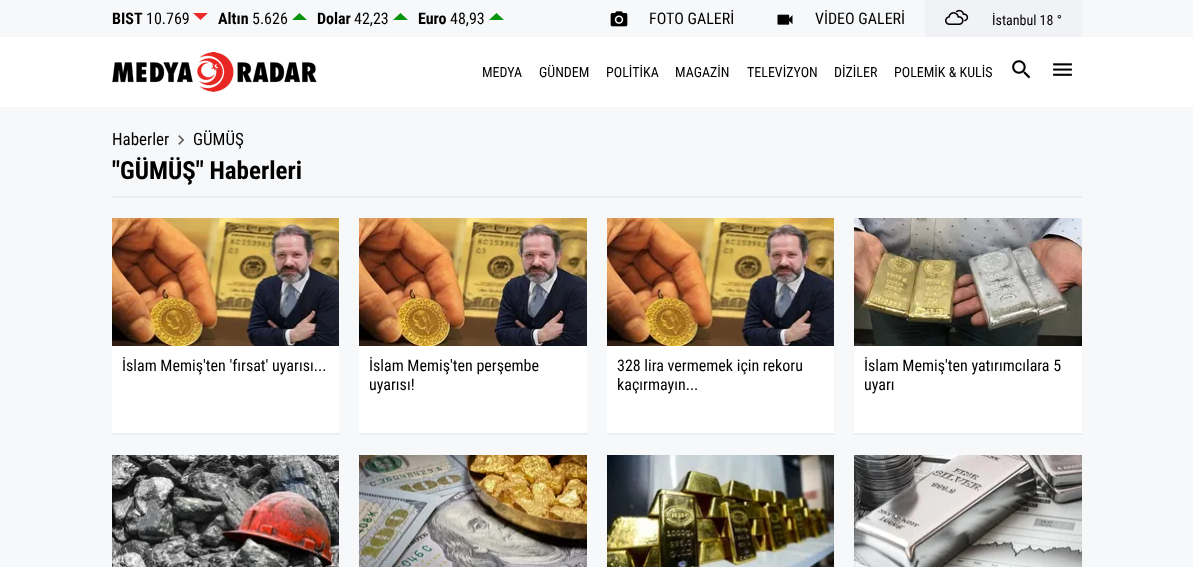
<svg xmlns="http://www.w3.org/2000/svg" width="1193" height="567">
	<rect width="100%" height="100%" fill="#F7F8FA" />
	<text x="112" y="24" font-family="Roboto Condensed" font-size="16" font-weight="700" fill="#000000">BIST</text>
	<text x="146" y="24" font-family="Roboto Condensed" font-size="16" fill="#000000">10.769</text>
	<path d="M193 13L200.5 20L208 13Z" fill="#EF2A2A" />
	<text x="218" y="24" font-family="Roboto Condensed" font-size="16" font-weight="700" fill="#000000">Altın</text>
	<text x="252" y="24" font-family="Roboto Condensed" font-size="16" fill="#000000">5.626</text>
	<path d="M292 20L299.5 13L307 20Z" fill="#08940E" />
	<text x="317" y="24" font-family="Roboto Condensed" font-size="16" font-weight="700" fill="#000000">Dolar</text>
	<text x="354" y="24" font-family="Roboto Condensed" font-size="16" fill="#000000">42,23</text>
	<path d="M393 20L400.5 13L408 20Z" fill="#08940E" />
	<text x="418" y="24" font-family="Roboto Condensed" font-size="16" font-weight="700" fill="#000000">Euro</text>
	<text x="450" y="24" font-family="Roboto Condensed" font-size="16" fill="#000000">48,93</text>
	<path d="M489 20L496.5 13L504 20Z" fill="#08940E" />
	<image x="610" y="11" width="18" height="16" href="assets/img1.png" />
	<text x="649" y="24" font-family="Roboto Condensed" font-size="16" fill="#000000">FOTO GALERİ</text>
	<image x="777" y="14" width="16" height="11" href="assets/img2.png" />
	<text x="815" y="24" font-family="Roboto Condensed" font-size="16" fill="#000000">VİDEO GALERİ</text>
	<rect x="925" y="0" width="157" height="37" fill="#F1F2F6" />
	<image x="945" y="9" width="24" height="16" href="assets/img3.png" />
	<text x="992" y="25" font-family="Roboto Condensed" font-size="14" fill="#000000">İstanbul 18 °</text>
	<rect x="0" y="37" width="1193" height="70" fill="#FFFFFF" />
	<image x="112" y="52" width="205" height="40" href="assets/img4.png" />
	<g font-family="Roboto Condensed" font-size="14" fill="#000000">
		<text x="482" y="77">MEDYA</text>
		<text x="539" y="77">GÜNDEM</text>
		<text x="606" y="77">POLİTİKA</text>
		<text x="675" y="77">MAGAZİN</text>
		<text x="747" y="77">TELEVİZYON</text>
		<text x="834" y="77">DİZİLER</text>
		<text x="894" y="77">POLEMİK &amp; KULİS</text>
	</g>
	<image x="1012" y="60" width="19" height="19" href="assets/img5.png" />
	<image x="1053" y="63" width="19" height="13" href="assets/img6.png" />
	<text x="112" y="145" font-family="Roboto Condensed" font-size="17" fill="#000000">Haberler</text>
	<image x="178" y="135" width="7" height="10" href="assets/img7.png" />
	<text x="193" y="145" font-family="Roboto Condensed" font-size="17" fill="#000000">GÜMÜŞ</text>
	<rect x="112" y="196" width="970" height="2" fill="#E8EDF6" />
	<text x="112" y="179" font-family="Roboto Condensed" font-size="25" font-weight="700" fill="#000000">"GÜMÜŞ" Haberleri</text>
	<rect x="112" y="346" width="227" height="87" fill="#FFFFFF" />
	<image x="112" y="218" width="227" height="128" href="assets/img8.png" />
	<rect x="112" y="433" width="227" height="2" fill="#E8EDF6" />
	<text x="122" y="371" font-family="Roboto Condensed" font-size="16" fill="#000000">İslam Memiş'ten 'fırsat' uyarısı...</text>
	<rect x="359" y="346" width="228" height="87" fill="#FFFFFF" />
	<image x="359" y="218" width="228" height="128" href="assets/img9.png" />
	<rect x="359" y="433" width="228" height="2" fill="#E8EDF6" />
	<g font-family="Roboto Condensed" font-size="16" fill="#000000">
		<text x="369" y="371">İslam Memiş'ten perşembe</text>
		<text x="369" y="390">uyarısı!</text>
	</g>
	<rect x="607" y="346" width="227" height="87" fill="#FFFFFF" />
	<image x="607" y="218" width="227" height="128" href="assets/img10.png" />
	<rect x="607" y="433" width="227" height="2" fill="#E8EDF6" />
	<g font-family="Roboto Condensed" font-size="16" fill="#000000">
		<text x="617" y="371">328 lira vermemek için rekoru</text>
		<text x="617" y="390">kaçırmayın...</text>
	</g>
	<rect x="854" y="346" width="228" height="87" fill="#FFFFFF" />
	<image x="854" y="218" width="228" height="128" href="assets/img11.png" />
	<rect x="854" y="433" width="228" height="2" fill="#E8EDF6" />
	<g font-family="Roboto Condensed" font-size="16" fill="#000000">
		<text x="864" y="371">İslam Memiş'ten yatırımcılara 5</text>
		<text x="864" y="390">uyarı</text>
	</g>
	<image x="112" y="455" width="227" height="112" href="assets/img12.png" />
	<image x="359" y="455" width="228" height="112" href="assets/img13.png" />
	<image x="607" y="455" width="227" height="112" href="assets/img14.png" />
	<image x="854" y="455" width="228" height="112" href="assets/img15.png" />
</svg>
